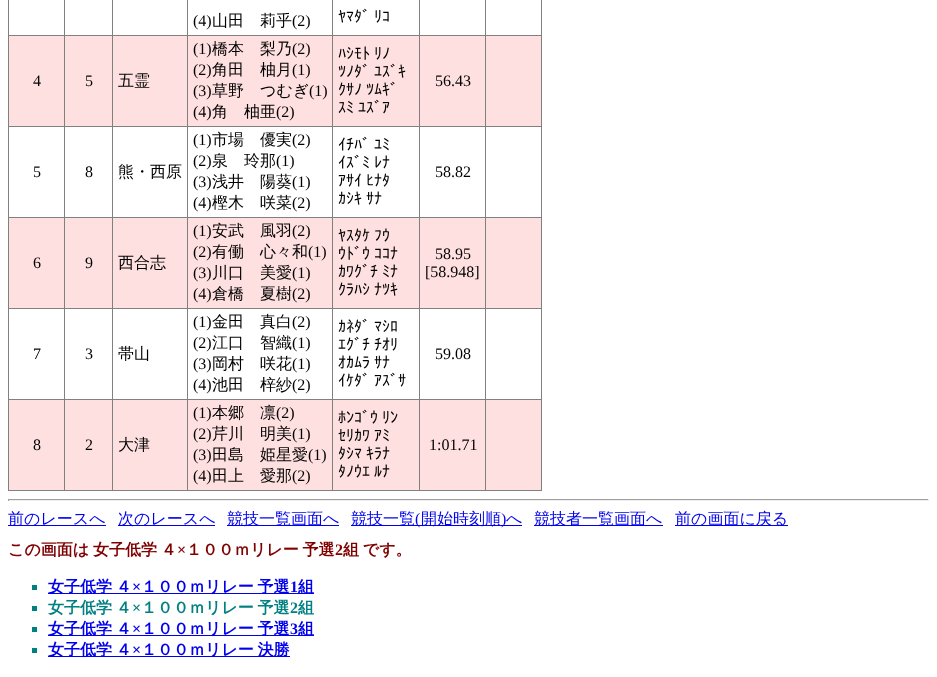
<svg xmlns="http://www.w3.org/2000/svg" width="937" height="677">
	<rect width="100%" height="100%" fill="#FFFFFF" />
	<rect x="8" y="0" width="1" height="491" fill="#808080" />
	<rect x="9" y="36" width="532" height="90" fill="#FFE0E0" />
	<rect x="9" y="218" width="532" height="90" fill="#FFE0E0" />
	<rect x="9" y="400" width="532" height="90" fill="#FFE0E0" />
	<rect x="541" y="0" width="1" height="491" fill="#808080" />
	<rect x="485" y="490" width="57" height="1" fill="#808080" />
	<rect x="485" y="399" width="1" height="92" fill="#808080" />
	<rect x="485" y="399" width="57" height="1" fill="#808080" />
	<rect x="485" y="308" width="1" height="92" fill="#808080" />
	<rect x="485" y="308" width="57" height="1" fill="#808080" />
	<rect x="485" y="217" width="1" height="92" fill="#808080" />
	<rect x="485" y="217" width="57" height="1" fill="#808080" />
	<rect x="485" y="126" width="1" height="92" fill="#808080" />
	<rect x="485" y="126" width="57" height="1" fill="#808080" />
	<rect x="485" y="35" width="1" height="92" fill="#808080" />
	<rect x="485" y="35" width="57" height="1" fill="#808080" />
	<rect x="485" y="0" width="1" height="36" fill="#808080" />
	<rect x="419" y="490" width="67" height="1" fill="#808080" />
	<rect x="419" y="399" width="1" height="92" fill="#808080" />
	<rect x="419" y="399" width="67" height="1" fill="#808080" />
	<rect x="419" y="308" width="1" height="92" fill="#808080" />
	<rect x="419" y="308" width="67" height="1" fill="#808080" />
	<rect x="419" y="217" width="1" height="92" fill="#808080" />
	<rect x="419" y="217" width="67" height="1" fill="#808080" />
	<rect x="419" y="126" width="1" height="92" fill="#808080" />
	<rect x="419" y="126" width="67" height="1" fill="#808080" />
	<rect x="419" y="35" width="1" height="92" fill="#808080" />
	<rect x="419" y="35" width="67" height="1" fill="#808080" />
	<rect x="419" y="0" width="1" height="36" fill="#808080" />
	<rect x="332" y="490" width="88" height="1" fill="#808080" />
	<rect x="332" y="399" width="1" height="92" fill="#808080" />
	<rect x="332" y="399" width="88" height="1" fill="#808080" />
	<rect x="332" y="308" width="1" height="92" fill="#808080" />
	<rect x="332" y="308" width="88" height="1" fill="#808080" />
	<rect x="332" y="217" width="1" height="92" fill="#808080" />
	<rect x="332" y="217" width="88" height="1" fill="#808080" />
	<rect x="332" y="126" width="1" height="92" fill="#808080" />
	<rect x="332" y="126" width="88" height="1" fill="#808080" />
	<rect x="332" y="35" width="1" height="92" fill="#808080" />
	<rect x="332" y="35" width="88" height="1" fill="#808080" />
	<rect x="332" y="0" width="1" height="36" fill="#808080" />
	<rect x="187" y="490" width="146" height="1" fill="#808080" />
	<rect x="187" y="399" width="1" height="92" fill="#808080" />
	<rect x="187" y="399" width="146" height="1" fill="#808080" />
	<rect x="187" y="308" width="1" height="92" fill="#808080" />
	<rect x="187" y="308" width="146" height="1" fill="#808080" />
	<rect x="187" y="217" width="1" height="92" fill="#808080" />
	<rect x="187" y="217" width="146" height="1" fill="#808080" />
	<rect x="187" y="126" width="1" height="92" fill="#808080" />
	<rect x="187" y="126" width="146" height="1" fill="#808080" />
	<rect x="187" y="35" width="1" height="92" fill="#808080" />
	<rect x="187" y="35" width="146" height="1" fill="#808080" />
	<rect x="187" y="0" width="1" height="36" fill="#808080" />
	<rect x="112" y="490" width="76" height="1" fill="#808080" />
	<rect x="112" y="399" width="1" height="92" fill="#808080" />
	<rect x="112" y="399" width="76" height="1" fill="#808080" />
	<rect x="112" y="308" width="1" height="92" fill="#808080" />
	<rect x="112" y="308" width="76" height="1" fill="#808080" />
	<rect x="112" y="217" width="1" height="92" fill="#808080" />
	<rect x="112" y="217" width="76" height="1" fill="#808080" />
	<rect x="112" y="126" width="1" height="92" fill="#808080" />
	<rect x="112" y="126" width="76" height="1" fill="#808080" />
	<rect x="112" y="35" width="1" height="92" fill="#808080" />
	<rect x="112" y="35" width="76" height="1" fill="#808080" />
	<rect x="112" y="0" width="1" height="36" fill="#808080" />
	<rect x="64" y="490" width="49" height="1" fill="#808080" />
	<rect x="64" y="399" width="1" height="92" fill="#808080" />
	<rect x="64" y="399" width="49" height="1" fill="#808080" />
	<rect x="64" y="308" width="1" height="92" fill="#808080" />
	<rect x="64" y="308" width="49" height="1" fill="#808080" />
	<rect x="64" y="217" width="1" height="92" fill="#808080" />
	<rect x="64" y="217" width="49" height="1" fill="#808080" />
	<rect x="64" y="126" width="1" height="92" fill="#808080" />
	<rect x="64" y="126" width="49" height="1" fill="#808080" />
	<rect x="64" y="35" width="1" height="92" fill="#808080" />
	<rect x="64" y="35" width="49" height="1" fill="#808080" />
	<rect x="64" y="0" width="1" height="36" fill="#808080" />
	<rect x="8" y="35" width="57" height="1" fill="#808080" />
	<text x="193" y="26" font-family="Liberation Serif" font-size="16" fill="#000000">(4)</text>
	<text x="212" y="26" font-family="WenQuanYi Zen Hei" font-size="16" font-weight="500" fill="#000000">山田　莉乎</text>
	<text x="292" y="26" font-family="Liberation Serif" font-size="16" fill="#000000">(2)</text>
	<text x="338" y="22" word-spacing="-4" font-family="IPAGothic" font-size="16" fill="#000000">ﾔﾏﾀﾞ ﾘｺ</text>
	<rect x="8" y="126" width="57" height="1" fill="#808080" />
	<g font-family="Liberation Serif" font-size="16" fill="#000000">
		<text x="33" y="86">4</text>
		<text x="85" y="86">5</text>
	</g>
	<text x="118" y="86" font-family="WenQuanYi Zen Hei" font-size="16" font-weight="500" fill="#000000">五霊</text>
	<text x="193" y="54" font-family="Liberation Serif" font-size="16" fill="#000000">(1)</text>
	<text x="212" y="54" font-family="WenQuanYi Zen Hei" font-size="16" font-weight="500" fill="#000000">橋本　梨乃</text>
	<g font-family="Liberation Serif" font-size="16" fill="#000000">
		<text x="292" y="54">(2)</text>
		<text x="193" y="75">(2)</text>
	</g>
	<text x="212" y="75" font-family="WenQuanYi Zen Hei" font-size="16" font-weight="500" fill="#000000">角田　柚月</text>
	<g font-family="Liberation Serif" font-size="16" fill="#000000">
		<text x="292" y="75">(1)</text>
		<text x="193" y="96">(3)</text>
	</g>
	<text x="212" y="96" font-family="WenQuanYi Zen Hei" font-size="16" font-weight="500" fill="#000000">草野　つむぎ</text>
	<g font-family="Liberation Serif" font-size="16" fill="#000000">
		<text x="309" y="96">(1)</text>
		<text x="193" y="117">(4)</text>
	</g>
	<text x="212" y="117" font-family="WenQuanYi Zen Hei" font-size="16" font-weight="500" fill="#000000">角　柚亜</text>
	<text x="276" y="117" font-family="Liberation Serif" font-size="16" fill="#000000">(2)</text>
	<g font-family="IPAGothic" font-size="16" fill="#000000">
		<text x="338" y="59" word-spacing="-4">ﾊｼﾓﾄ ﾘﾉ</text>
		<text x="338" y="77" word-spacing="-4">ﾂﾉﾀﾞ ﾕｽﾞｷ</text>
		<text x="338" y="95" word-spacing="-4">ｸｻﾉ ﾂﾑｷﾞ</text>
		<text x="338" y="113" word-spacing="-4">ｽﾐ ﾕｽﾞｱ</text>
	</g>
	<text x="435" y="86" font-family="Liberation Serif" font-size="16" fill="#000000">56.43</text>
	<rect x="8" y="217" width="57" height="1" fill="#808080" />
	<g font-family="Liberation Serif" font-size="16" fill="#000000">
		<text x="33" y="177">5</text>
		<text x="85" y="177">8</text>
	</g>
	<text x="118" y="177" font-family="WenQuanYi Zen Hei" font-size="16" font-weight="500" fill="#000000">熊・西原</text>
	<text x="193" y="145" font-family="Liberation Serif" font-size="16" fill="#000000">(1)</text>
	<text x="212" y="145" font-family="WenQuanYi Zen Hei" font-size="16" font-weight="500" fill="#000000">市場　優実</text>
	<g font-family="Liberation Serif" font-size="16" fill="#000000">
		<text x="292" y="145">(2)</text>
		<text x="193" y="166">(2)</text>
	</g>
	<text x="212" y="166" font-family="WenQuanYi Zen Hei" font-size="16" font-weight="500" fill="#000000">泉　玲那</text>
	<g font-family="Liberation Serif" font-size="16" fill="#000000">
		<text x="276" y="166">(1)</text>
		<text x="193" y="187">(3)</text>
	</g>
	<text x="212" y="187" font-family="WenQuanYi Zen Hei" font-size="16" font-weight="500" fill="#000000">浅井　陽葵</text>
	<g font-family="Liberation Serif" font-size="16" fill="#000000">
		<text x="292" y="187">(1)</text>
		<text x="193" y="208">(4)</text>
	</g>
	<text x="212" y="208" font-family="WenQuanYi Zen Hei" font-size="16" font-weight="500" fill="#000000">樫木　咲菜</text>
	<text x="292" y="208" font-family="Liberation Serif" font-size="16" fill="#000000">(2)</text>
	<g font-family="IPAGothic" font-size="16" fill="#000000">
		<text x="338" y="150" word-spacing="-4">ｲﾁﾊﾞ ﾕﾐ</text>
		<text x="338" y="168" word-spacing="-4">ｲｽﾞﾐ ﾚﾅ</text>
		<text x="338" y="186" word-spacing="-4">ｱｻｲ ﾋﾅﾀ</text>
		<text x="338" y="204" word-spacing="-4">ｶｼｷ ｻﾅ</text>
	</g>
	<text x="435" y="177" font-family="Liberation Serif" font-size="16" fill="#000000">58.82</text>
	<rect x="8" y="308" width="57" height="1" fill="#808080" />
	<g font-family="Liberation Serif" font-size="16" fill="#000000">
		<text x="33" y="268">6</text>
		<text x="85" y="268">9</text>
	</g>
	<text x="118" y="268" font-family="WenQuanYi Zen Hei" font-size="16" font-weight="500" fill="#000000">西合志</text>
	<text x="193" y="236" font-family="Liberation Serif" font-size="16" fill="#000000">(1)</text>
	<text x="212" y="236" font-family="WenQuanYi Zen Hei" font-size="16" font-weight="500" fill="#000000">安武　風羽</text>
	<g font-family="Liberation Serif" font-size="16" fill="#000000">
		<text x="292" y="236">(2)</text>
		<text x="193" y="257">(2)</text>
	</g>
	<text x="212" y="257" font-family="WenQuanYi Zen Hei" font-size="16" font-weight="500" fill="#000000">有働　心々和</text>
	<g font-family="Liberation Serif" font-size="16" fill="#000000">
		<text x="308" y="257">(1)</text>
		<text x="193" y="278">(3)</text>
	</g>
	<text x="212" y="278" font-family="WenQuanYi Zen Hei" font-size="16" font-weight="500" fill="#000000">川口　美愛</text>
	<g font-family="Liberation Serif" font-size="16" fill="#000000">
		<text x="292" y="278">(1)</text>
		<text x="193" y="299">(4)</text>
	</g>
	<text x="212" y="299" font-family="WenQuanYi Zen Hei" font-size="16" font-weight="500" fill="#000000">倉橋　夏樹</text>
	<text x="292" y="299" font-family="Liberation Serif" font-size="16" fill="#000000">(2)</text>
	<g font-family="IPAGothic" font-size="16" fill="#000000">
		<text x="338" y="241" word-spacing="-4">ﾔｽﾀｹ ﾌｳ</text>
		<text x="338" y="259" word-spacing="-4">ｳﾄﾞｳ ｺｺﾅ</text>
		<text x="338" y="277" word-spacing="-4">ｶﾜｸﾞﾁ ﾐﾅ</text>
		<text x="338" y="295" word-spacing="-4">ｸﾗﾊｼ ﾅﾂｷ</text>
	</g>
	<g font-family="Liberation Serif" font-size="16" fill="#000000">
		<text x="435" y="259">58.95</text>
		<text x="425" y="277">[58.948]</text>
	</g>
	<rect x="8" y="399" width="57" height="1" fill="#808080" />
	<g font-family="Liberation Serif" font-size="16" fill="#000000">
		<text x="33" y="359">7</text>
		<text x="85" y="359">3</text>
	</g>
	<text x="118" y="359" font-family="WenQuanYi Zen Hei" font-size="16" font-weight="500" fill="#000000">帯山</text>
	<text x="193" y="327" font-family="Liberation Serif" font-size="16" fill="#000000">(1)</text>
	<text x="212" y="327" font-family="WenQuanYi Zen Hei" font-size="16" font-weight="500" fill="#000000">金田　真白</text>
	<g font-family="Liberation Serif" font-size="16" fill="#000000">
		<text x="292" y="327">(2)</text>
		<text x="193" y="348">(2)</text>
	</g>
	<text x="212" y="348" font-family="WenQuanYi Zen Hei" font-size="16" font-weight="500" fill="#000000">江口　智織</text>
	<g font-family="Liberation Serif" font-size="16" fill="#000000">
		<text x="292" y="348">(1)</text>
		<text x="193" y="369">(3)</text>
	</g>
	<text x="212" y="369" font-family="WenQuanYi Zen Hei" font-size="16" font-weight="500" fill="#000000">岡村　咲花</text>
	<g font-family="Liberation Serif" font-size="16" fill="#000000">
		<text x="292" y="369">(1)</text>
		<text x="193" y="390">(4)</text>
	</g>
	<text x="212" y="390" font-family="WenQuanYi Zen Hei" font-size="16" font-weight="500" fill="#000000">池田　梓紗</text>
	<text x="292" y="390" font-family="Liberation Serif" font-size="16" fill="#000000">(2)</text>
	<g font-family="IPAGothic" font-size="16" fill="#000000">
		<text x="338" y="332" word-spacing="-4">ｶﾈﾀﾞ ﾏｼﾛ</text>
		<text x="338" y="350" word-spacing="-4">ｴｸﾞﾁ ﾁｵﾘ</text>
		<text x="338" y="368" word-spacing="-4">ｵｶﾑﾗ ｻﾅ</text>
		<text x="338" y="386" word-spacing="-4">ｲｹﾀﾞ ｱｽﾞｻ</text>
	</g>
	<text x="435" y="359" font-family="Liberation Serif" font-size="16" fill="#000000">59.08</text>
	<rect x="8" y="490" width="57" height="1" fill="#808080" />
	<g font-family="Liberation Serif" font-size="16" fill="#000000">
		<text x="33" y="450">8</text>
		<text x="85" y="450">2</text>
	</g>
	<text x="118" y="450" font-family="WenQuanYi Zen Hei" font-size="16" font-weight="500" fill="#000000">大津</text>
	<text x="193" y="418" font-family="Liberation Serif" font-size="16" fill="#000000">(1)</text>
	<text x="212" y="418" font-family="WenQuanYi Zen Hei" font-size="16" font-weight="500" fill="#000000">本郷　凛</text>
	<g font-family="Liberation Serif" font-size="16" fill="#000000">
		<text x="276" y="418">(2)</text>
		<text x="193" y="439">(2)</text>
	</g>
	<text x="212" y="439" font-family="WenQuanYi Zen Hei" font-size="16" font-weight="500" fill="#000000">芹川　明美</text>
	<g font-family="Liberation Serif" font-size="16" fill="#000000">
		<text x="292" y="439">(1)</text>
		<text x="193" y="460">(3)</text>
	</g>
	<text x="212" y="460" font-family="WenQuanYi Zen Hei" font-size="16" font-weight="500" fill="#000000">田島　姫星愛</text>
	<g font-family="Liberation Serif" font-size="16" fill="#000000">
		<text x="308" y="460">(1)</text>
		<text x="193" y="481">(4)</text>
	</g>
	<text x="212" y="481" font-family="WenQuanYi Zen Hei" font-size="16" font-weight="500" fill="#000000">田上　愛那</text>
	<text x="292" y="481" font-family="Liberation Serif" font-size="16" fill="#000000">(2)</text>
	<g font-family="IPAGothic" font-size="16" fill="#000000">
		<text x="338" y="423" word-spacing="-4">ﾎﾝｺﾞｳ ﾘﾝ</text>
		<text x="338" y="441" word-spacing="-4">ｾﾘｶﾜ ｱﾐ</text>
		<text x="338" y="459" word-spacing="-4">ﾀｼﾏ ｷﾗﾅ</text>
		<text x="338" y="477" word-spacing="-4">ﾀﾉｳｴ ﾙﾅ</text>
	</g>
	<text x="429" y="450" font-family="Liberation Serif" font-size="16" fill="#000000">1:01.71</text>
	<rect x="8" y="499" width="921" height="1" fill="#9F9F9F" />
	<rect x="928" y="499" width="1" height="2" fill="#EEEEEE" />
	<rect x="8" y="500" width="921" height="1" fill="#EEEEEE" />
	<rect x="8" y="499" width="1" height="2" fill="#9F9F9F" />
	<rect x="8" y="525" width="98" height="1" fill="#0000EE" />
	<text x="8" y="524" font-family="WenQuanYi Zen Hei" font-size="16" font-weight="500" fill="#0000EE">前のレースへ</text>
	<rect x="118" y="525" width="97" height="1" fill="#0000EE" />
	<text x="118" y="524" font-family="WenQuanYi Zen Hei" font-size="16" font-weight="500" fill="#0000EE">次のレースへ</text>
	<rect x="227" y="525" width="112" height="1" fill="#0000EE" />
	<text x="227" y="524" font-family="WenQuanYi Zen Hei" font-size="16" font-weight="500" fill="#0000EE">競技一覧画面へ</text>
	<rect x="351" y="525" width="171" height="1" fill="#0000EE" />
	<text x="351" y="524" font-family="WenQuanYi Zen Hei" font-size="16" font-weight="500" fill="#0000EE">競技一覧</text>
	<text x="415" y="524" font-family="Liberation Serif" font-size="16" fill="#0000EE">(</text>
	<text x="421" y="524" font-family="WenQuanYi Zen Hei" font-size="16" font-weight="500" fill="#0000EE">開始時刻順</text>
	<text x="501" y="524" font-family="Liberation Serif" font-size="16" fill="#0000EE">)</text>
	<text x="506" y="524" font-family="WenQuanYi Zen Hei" font-size="16" font-weight="500" fill="#0000EE">へ</text>
	<rect x="534" y="525" width="129" height="1" fill="#0000EE" />
	<text x="534" y="524" font-family="WenQuanYi Zen Hei" font-size="16" font-weight="500" fill="#0000EE">競技者一覧画面へ</text>
	<rect x="675" y="525" width="113" height="1" fill="#0000EE" />
	<text x="675" y="524" font-family="WenQuanYi Zen Hei" font-size="16" font-weight="500" fill="#0000EE">前の画面に戻る</text>
	<text x="8" y="555" word-spacing="-1" font-family="WenQuanYi Zen Hei" font-size="16" font-weight="700" fill="#800000">この画面は 女子低学 ４</text>
	<text x="177" y="555" font-family="Liberation Serif" font-size="16" font-weight="700" fill="#800000">×</text>
	<text x="186" y="555" word-spacing="-1" font-family="WenQuanYi Zen Hei" font-size="16" font-weight="700" fill="#800000">１００ｍリレー 予選</text>
	<text x="335" y="555" font-family="Liberation Serif" font-size="16" font-weight="700" fill="#800000">2</text>
	<text x="343" y="555" word-spacing="-1" font-family="WenQuanYi Zen Hei" font-size="16" font-weight="700" fill="#800000">組 です。</text>
	<rect x="32" y="585" width="5" height="5" fill="#008080" />
	<rect x="48" y="593" width="266" height="1" fill="#0000EE" />
	<text x="48" y="592" word-spacing="-1" font-family="WenQuanYi Zen Hei" font-size="16" font-weight="700" fill="#0000EE">女子低学 ４</text>
	<text x="132" y="592" font-family="Liberation Serif" font-size="16" font-weight="700" fill="#0000EE">×</text>
	<text x="141" y="592" word-spacing="-1" font-family="WenQuanYi Zen Hei" font-size="16" font-weight="700" fill="#0000EE">１００ｍリレー 予選</text>
	<text x="290" y="592" font-family="Liberation Serif" font-size="16" font-weight="700" fill="#0000EE">1</text>
	<text x="298" y="592" font-family="WenQuanYi Zen Hei" font-size="16" font-weight="700" fill="#0000EE">組</text>
	<rect x="32" y="606" width="5" height="5" fill="#008080" />
	<text x="48" y="613" word-spacing="-1" font-family="WenQuanYi Zen Hei" font-size="16" font-weight="700" fill="#008080">女子低学 ４</text>
	<text x="132" y="613" font-family="Liberation Serif" font-size="16" font-weight="700" fill="#008080">×</text>
	<text x="141" y="613" word-spacing="-1" font-family="WenQuanYi Zen Hei" font-size="16" font-weight="700" fill="#008080">１００ｍリレー 予選</text>
	<text x="290" y="613" font-family="Liberation Serif" font-size="16" font-weight="700" fill="#008080">2</text>
	<text x="298" y="613" font-family="WenQuanYi Zen Hei" font-size="16" font-weight="700" fill="#008080">組</text>
	<rect x="32" y="627" width="5" height="5" fill="#008080" />
	<rect x="48" y="635" width="266" height="1" fill="#0000EE" />
	<text x="48" y="634" word-spacing="-1" font-family="WenQuanYi Zen Hei" font-size="16" font-weight="700" fill="#0000EE">女子低学 ４</text>
	<text x="132" y="634" font-family="Liberation Serif" font-size="16" font-weight="700" fill="#0000EE">×</text>
	<text x="141" y="634" word-spacing="-1" font-family="WenQuanYi Zen Hei" font-size="16" font-weight="700" fill="#0000EE">１００ｍリレー 予選</text>
	<text x="290" y="634" font-family="Liberation Serif" font-size="16" font-weight="700" fill="#0000EE">3</text>
	<text x="298" y="634" font-family="WenQuanYi Zen Hei" font-size="16" font-weight="700" fill="#0000EE">組</text>
	<rect x="32" y="648" width="5" height="5" fill="#008080" />
	<rect x="48" y="656" width="242" height="1" fill="#0000EE" />
	<text x="48" y="655" word-spacing="-1" font-family="WenQuanYi Zen Hei" font-size="16" font-weight="700" fill="#0000EE">女子低学 ４</text>
	<text x="132" y="655" font-family="Liberation Serif" font-size="16" font-weight="700" fill="#0000EE">×</text>
	<text x="141" y="655" word-spacing="-1" font-family="WenQuanYi Zen Hei" font-size="16" font-weight="700" fill="#0000EE">１００ｍリレー 決勝</text>
</svg>
